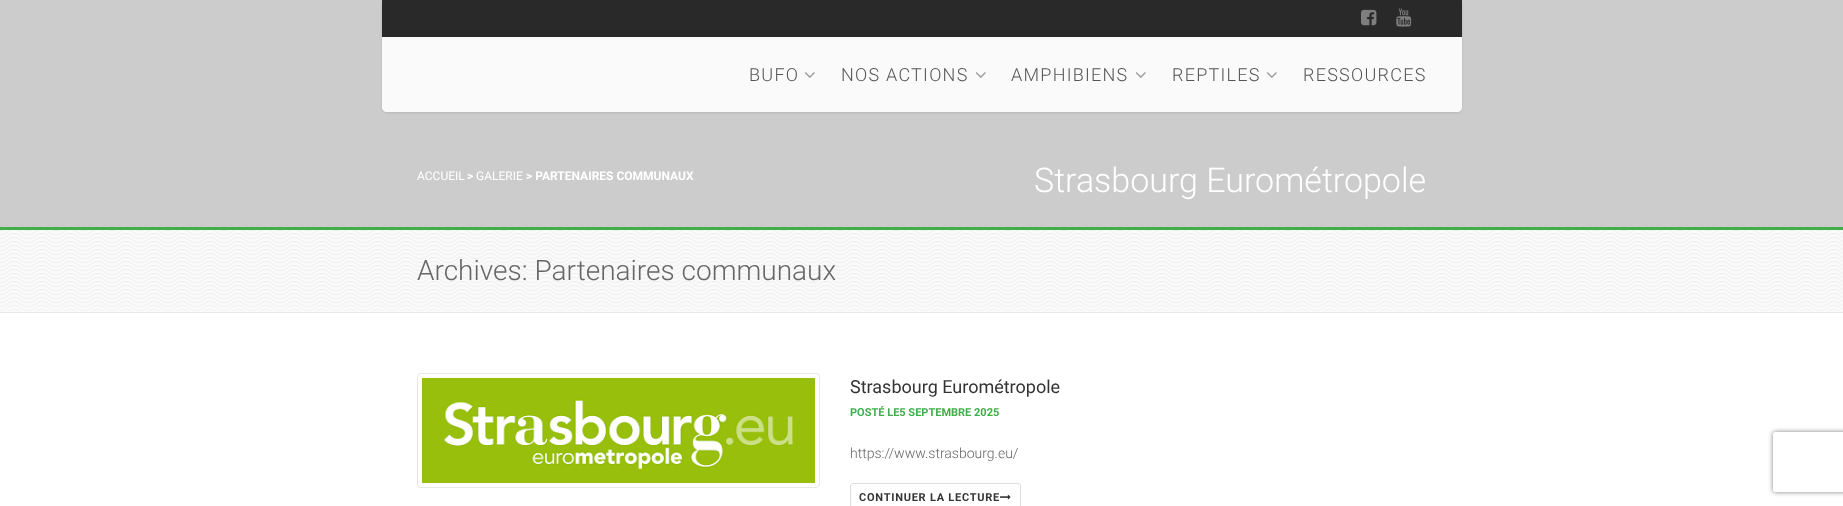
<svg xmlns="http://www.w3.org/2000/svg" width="1843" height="506">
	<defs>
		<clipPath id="clip1"><path d="M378 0H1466V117H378ZM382 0H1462V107C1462 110 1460 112 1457 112H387C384 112 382 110 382 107Z" clip-rule="evenodd" /></clipPath>
		<clipPath id="clip2"><path d="M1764 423H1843V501H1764ZM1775 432H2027C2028 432 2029 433 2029 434V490C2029 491 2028 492 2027 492H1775C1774 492 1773 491 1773 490V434C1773 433 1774 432 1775 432Z" clip-rule="evenodd" /></clipPath>
	</defs>
	<rect width="100%" height="100%" fill="#FFFFFF" />
	<rect x="0" y="0" width="1843" height="227" fill="#CCCCCC" />
	<g clip-path="url(#clip1)">
		<rect x="382" y="1" width="1080" height="112" rx="5" fill="#000000" fill-opacity="0.1" filter="blur(1px)" />
	</g>
	<rect x="382" y="0" width="1080" height="37" fill="#292929" />
	<image x="1361" y="9" width="16" height="17" href="assets/img1.png" />
	<image x="1396" y="8" width="16" height="19" href="assets/img2.png" />
	<path d="M382 37H1462V107C1462 110 1460 112 1457 112H387C384 112 382 110 382 107Z" fill="#FFFFFF" fill-opacity="0.9" />
	<text x="749" y="81" font-family="Roboto" font-size="18" font-weight="300" letter-spacing="1.25" fill="#555555">BUFO</text>
	<image x="804" y="72" width="11" height="6" href="assets/img3.png" />
	<text x="841" y="81" font-family="Roboto" font-size="18" font-weight="300" letter-spacing="1.25" fill="#555555">NOS ACTIONS</text>
	<image x="975" y="72" width="11" height="6" href="assets/img3.png" />
	<text x="1011" y="81" font-family="Roboto" font-size="18" font-weight="300" letter-spacing="1.25" fill="#555555">AMPHIBIENS</text>
	<image x="1135" y="72" width="11" height="6" href="assets/img3.png" />
	<text x="1172" y="81" font-family="Roboto" font-size="18" font-weight="300" letter-spacing="1.25" fill="#555555">REPTILES</text>
	<image x="1266" y="72" width="11" height="6" href="assets/img3.png" />
	<text x="1303" y="81" font-family="Roboto" font-size="18" font-weight="300" letter-spacing="1.25" fill="#555555">RESSOURCES</text>
	<rect x="0" y="227" width="1843" height="3" fill="#40AF49" />
	<text x="417" y="180" font-family="Roboto" font-size="12" fill="#FFFFFF">ACCUEIL</text>
	<text x="467" y="180" font-family="Roboto" font-size="12" font-weight="700" fill="#FFFFFF">&gt;</text>
	<text x="476" y="180" font-family="Roboto" font-size="12" fill="#FFFFFF">GALERIE</text>
	<text x="526" y="180" font-family="Roboto" font-size="12" font-weight="700" fill="#FFFFFF">&gt; PARTENAIRES COMMUNAUX</text>
	<text x="1034" y="192" font-family="Roboto" font-size="34" font-weight="300" fill="#FFFFFF">Strasbourg Eurométropole</text>
	<rect x="0" y="230" width="1843" height="82" fill="#FAFAFA" />
	<image x="0" y="230" width="1843" height="81" href="assets/img4.png" />
	<rect x="0" y="312" width="1843" height="1" fill="#E8E8E8" />
	<text x="417" y="280" font-family="Roboto" font-size="28" font-weight="300" fill="#666666">Archives: Partenaires communaux</text>
	<rect x="417.5" y="373.5" width="402" height="114" rx="3.5" fill="none" stroke="#E8E8E8" />
	<image x="422" y="378" width="393" height="105" href="assets/img5.png" />
	<text x="850" y="393" font-family="Roboto" font-size="18" fill="#333333">Strasbourg Eurométropole</text>
	<text x="850" y="416" font-family="Roboto" font-size="11" font-weight="700" fill="#40AF49">POSTÉ LE5 SEPTEMBRE 2025</text>
	<text x="850" y="458" font-family="Roboto" font-size="14" font-weight="300" fill="#666666">https://www.strasbourg.eu/</text>
	<rect x="850.5" y="483.5" width="170" height="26" rx="2.5" fill="none" stroke="#DDDDDD" />
	<text x="859" y="501" font-family="Roboto" font-size="11" font-weight="700" letter-spacing="0.75" fill="#333333">CONTINUER LA LECTURE</text>
	<image x="1000" y="494" width="11" height="6" href="assets/img6.png" />
	<g clip-path="url(#clip2)">
		<rect x="1773" y="432" width="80" height="60" rx="2" fill="#808080" filter="blur(2.5px)" />
	</g>
</svg>
